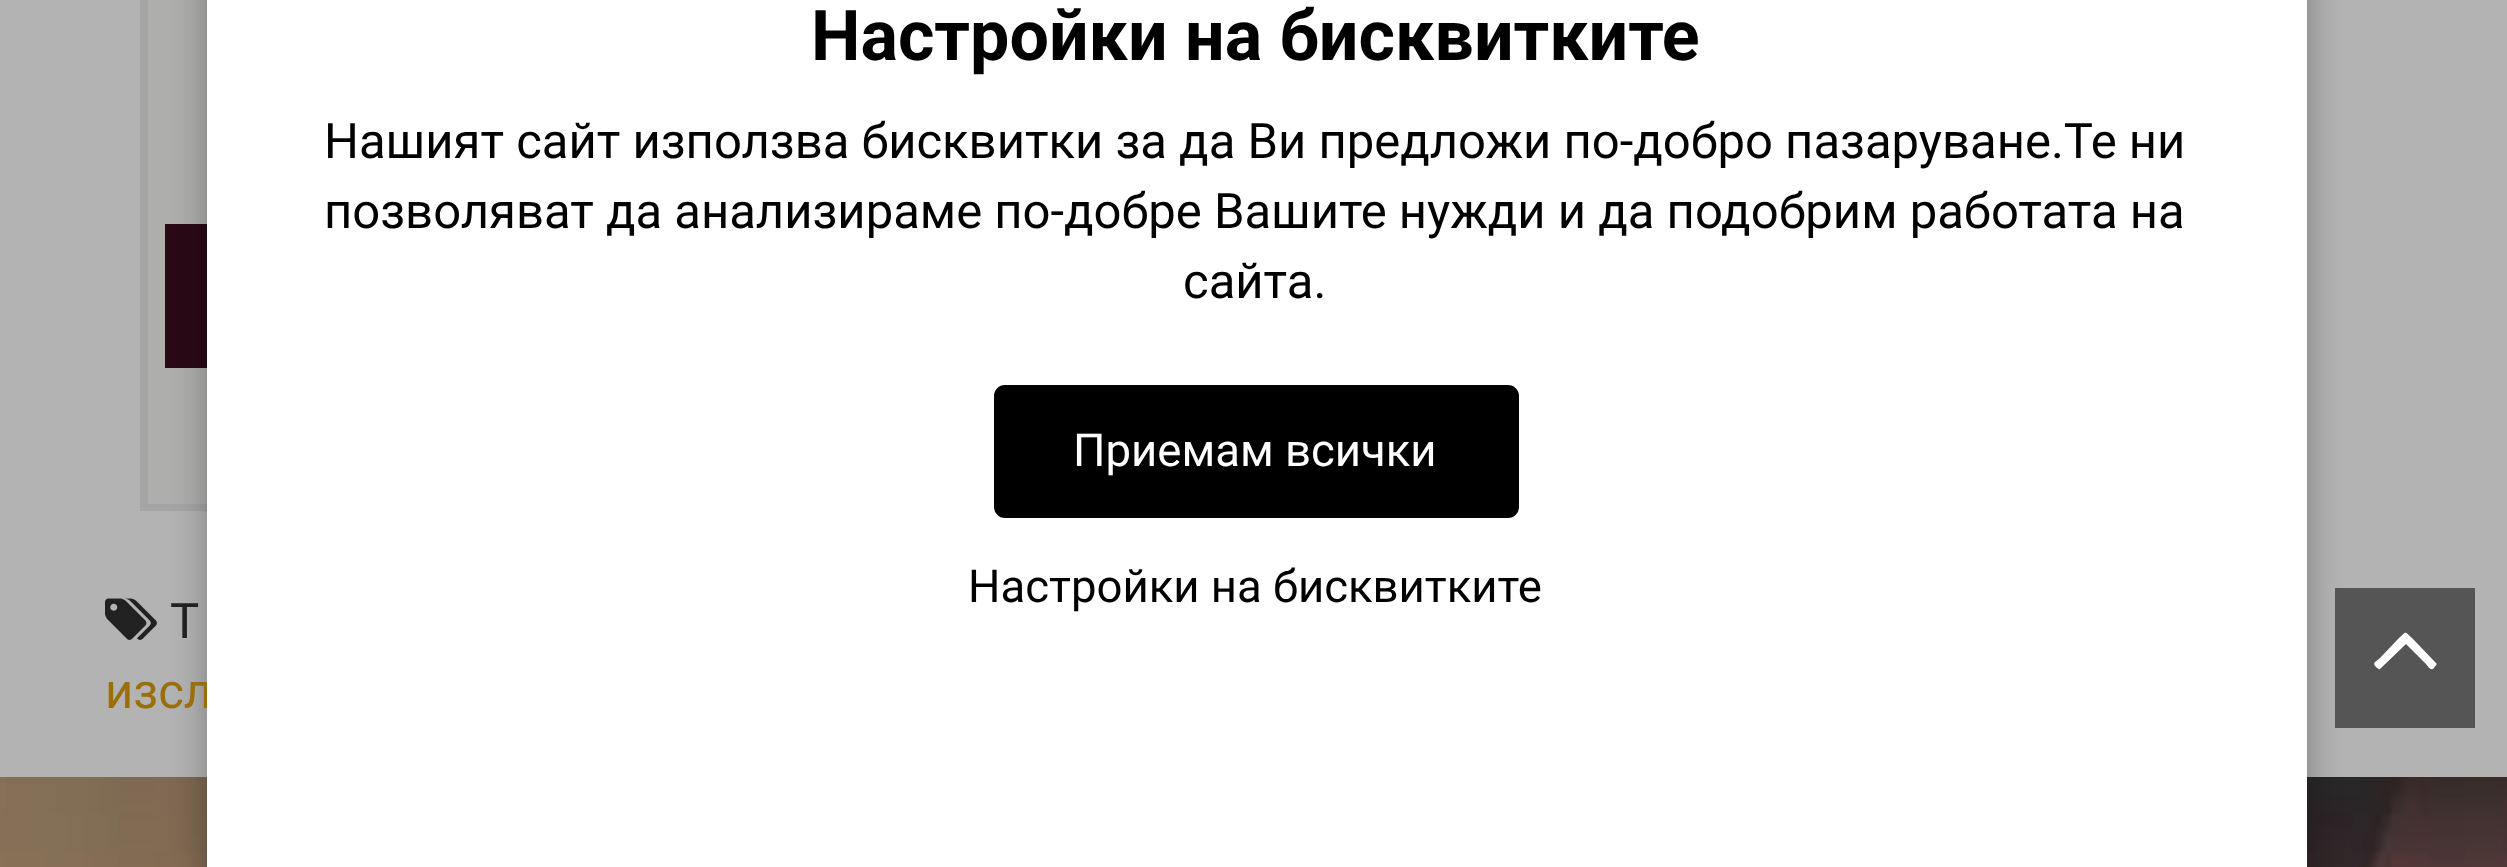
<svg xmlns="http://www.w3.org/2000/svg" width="2507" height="867">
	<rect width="100%" height="100%" fill="#B3B3B3" />
	<rect x="142" y="-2" width="1060" height="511" fill="none" stroke="#A5A5A5" stroke-width="4" />
	<rect x="148" y="0" width="59" height="504" fill="#AEAEAD" />
	<rect x="146" y="-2" width="1053" height="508" fill="none" stroke="#A5A5A5" stroke-width="4" />
	<rect x="165" y="224" width="42" height="144" fill="#2A0916" />
	<image x="105" y="598" width="52" height="42" href="assets/img1.png" />
	<image x="0" y="777" width="2507" height="90" href="assets/img2.png" />
	<rect x="207" y="-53" width="2100" height="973" fill="#000000" fill-opacity="0.3" filter="blur(17.5px)" />
	<text x="105" y="708" font-family="Roboto" font-size="49" fill="#9B6F08">изсл</text>
	<rect x="207" y="0" width="2100" height="867" fill="#FFFFFF" />
	<text x="811" y="60" font-family="Roboto" font-size="70" font-weight="700" fill="#000000">Настройки на бисквитките</text>
	<g font-family="Roboto" font-size="49" fill="#000000">
		<text x="324" y="158">Нашият сайт използва бисквитки за да Ви предложи по-добро пазаруване.Те ни</text>
		<text x="324" y="228">позволяват да анализираме по-добре Вашите нужди и да подобрим работата на</text>
		<text x="1183" y="298">сайта.</text>
	</g>
	<rect x="996" y="387" width="521" height="129" rx="9" fill="#000000" stroke="#000000" stroke-width="4" />
	<text x="1073" y="466" font-family="Roboto" font-size="45.5" fill="#FFFFFF">Приемам всички</text>
	<text x="968" y="602" font-family="Roboto" font-size="45.5" fill="#000000">Настройки на бисквитките</text>
	<text x="170" y="638" font-family="Roboto" font-size="49" fill="#212121">Т</text>
	<rect x="2335" y="588" width="140" height="140" fill="#555555" />
	<path d="M2436 663C2438 664 2435 666 2434 668C2431 671 2429 668 2426 664L2406 644L2380 669C2379 670 2378 668 2377 668C2372 663 2374 663 2380 658L2399 638C2407 631 2404 631 2412 638Z" fill="#FFFFFF" />
</svg>
